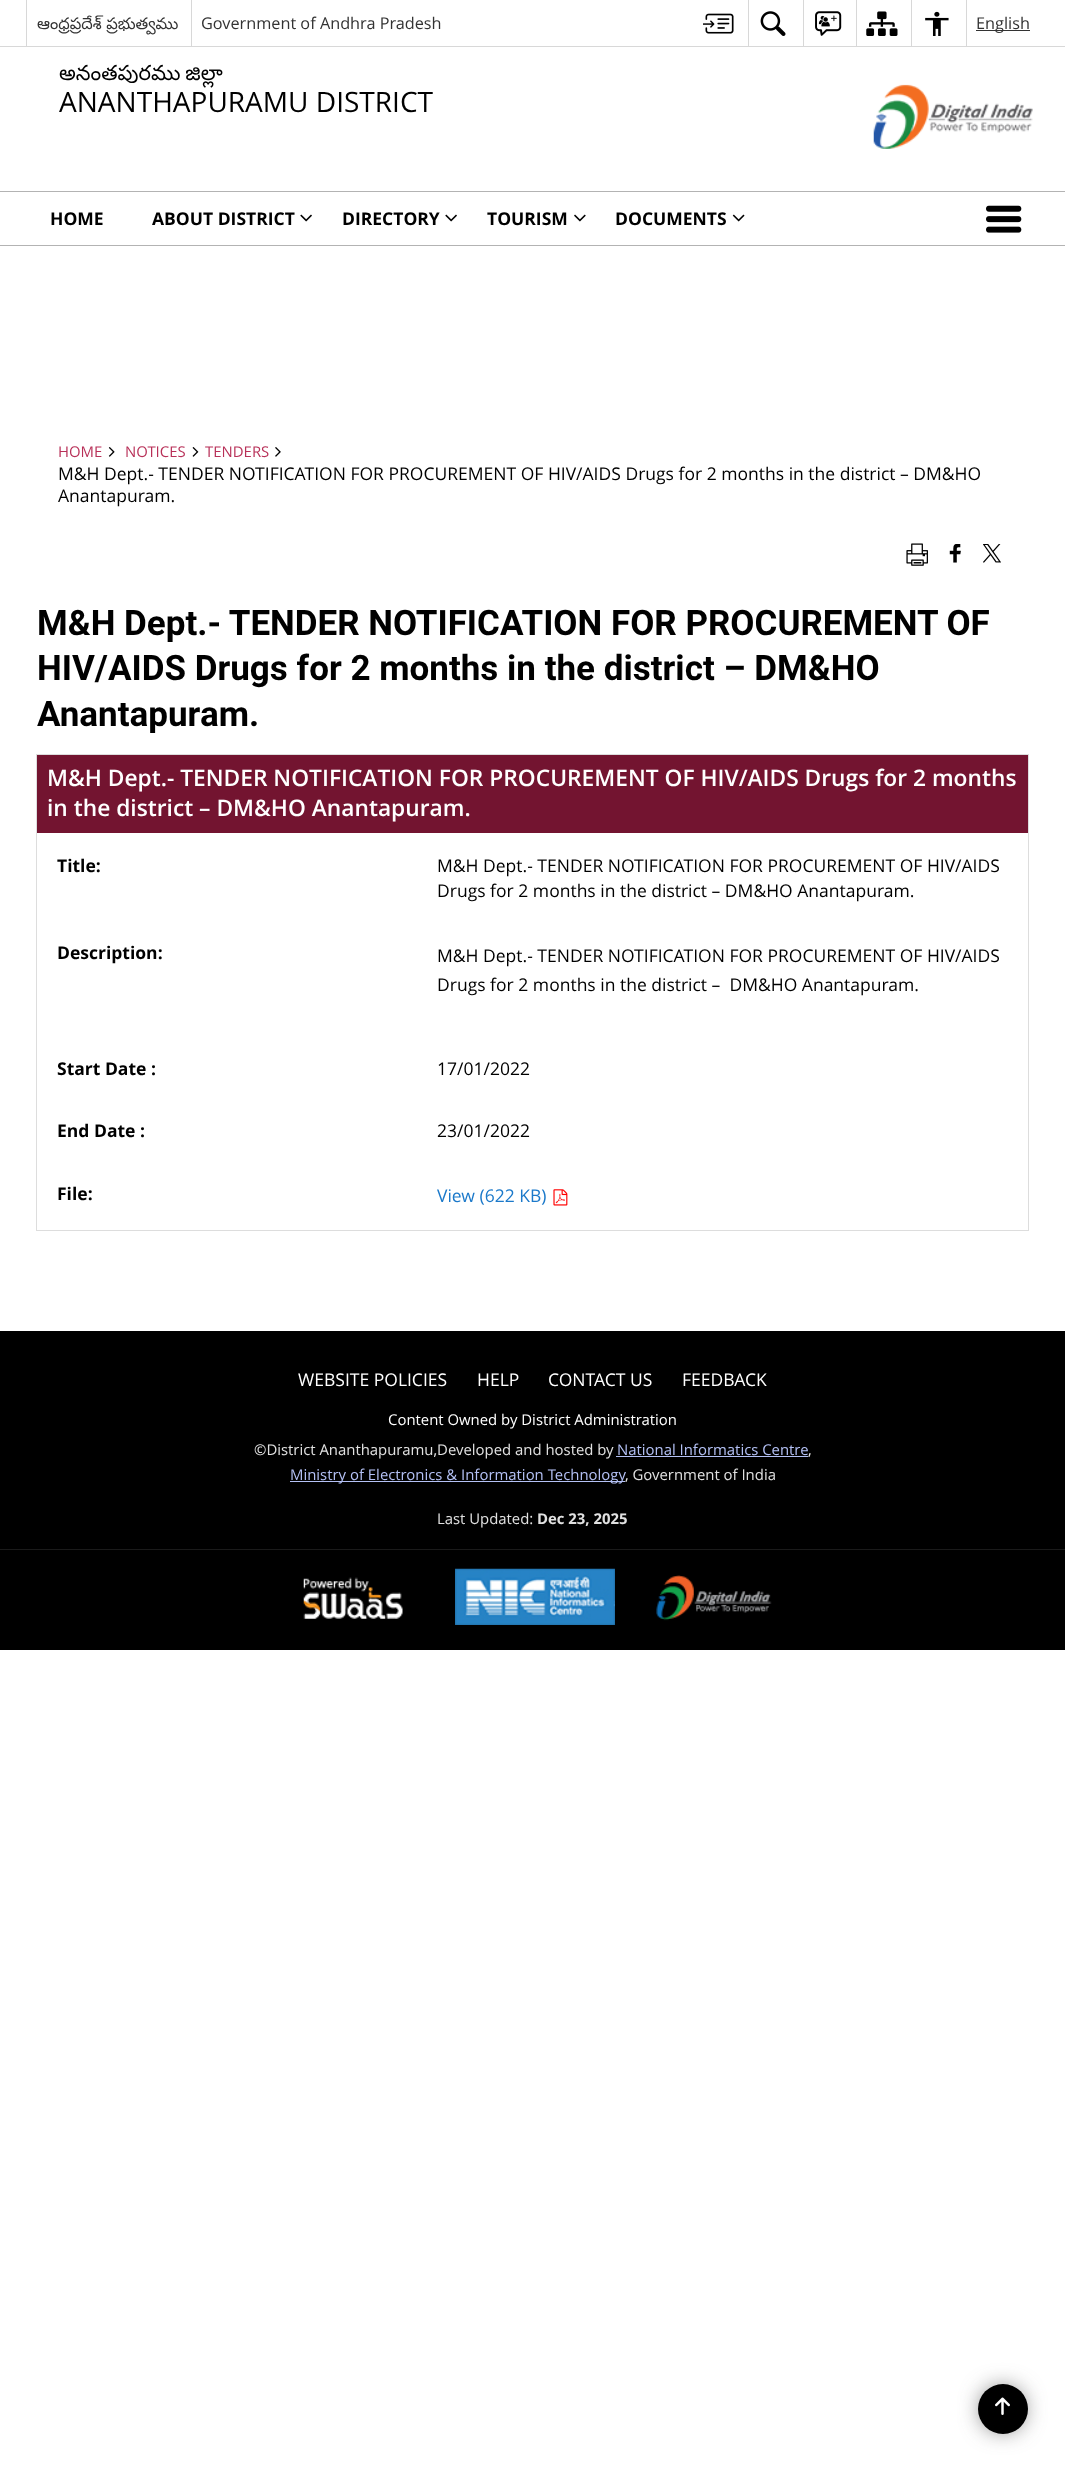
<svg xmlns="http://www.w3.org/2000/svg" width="1065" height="2471">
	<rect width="100%" height="100%" fill="#FFFFFF" />
	<rect x="0" y="46" width="1065" height="1" fill="#D8D8D8" />
	<rect x="26" y="0" width="1" height="46" fill="#D8D8D8" />
	<text x="37" y="29" font-family="Noto Sans Telugu" font-size="16.25" fill="#333333">ఆంధ్రప్రదేశ్ ప్రభుత్వము</text>
	<rect x="191" y="0" width="1" height="46" fill="#D8D8D8" />
	<text x="201" y="29" font-family="Open Sans" font-size="16.25" fill="#333333">Government of Andhra Pradesh</text>
	<image x="703" y="13" width="31" height="21" href="assets/img1.png" />
	<rect x="748" y="0" width="1" height="46" fill="#D8D8D8" />
	<image x="760" y="11" width="26" height="25" href="assets/img2.png" />
	<rect x="803" y="0" width="1" height="46" fill="#D8D8D8" />
	<image x="815" y="11" width="27" height="25" href="assets/img3.png" />
	<rect x="856" y="0" width="1" height="46" fill="#D8D8D8" />
	<image x="866" y="11" width="32" height="25" href="assets/img4.png" />
	<rect x="911" y="0" width="1" height="46" fill="#D8D8D8" />
	<image x="925" y="11" width="24" height="25" href="assets/img5.png" />
	<rect x="966" y="0" width="1" height="46" fill="#D8D8D8" />
	<rect x="976" y="30" width="54" height="1" fill="#333333" />
	<text x="976" y="29" font-family="Open Sans" font-size="16.25" fill="#333333">English</text>
	<text x="59" y="80" word-spacing="-1" font-family="Noto Sans Telugu" font-size="21" fill="#000000">అనంతపురము జిల్లా</text>
	<text x="59" y="112" font-family="Open Sans" font-size="28" fill="#000000">ANANTHAPURAMU DISTRICT</text>
	<image x="873" y="84" width="160" height="65" href="assets/img6.png" />
	<rect x="0" y="191" width="1065" height="1" fill="#B3B3B3" />
	<rect x="0" y="245" width="1065" height="1" fill="#B3B3B3" />
	<g font-family="Open Sans" font-size="17.5" font-weight="700" fill="#000000">
		<text x="50" y="225">HOME</text>
		<text x="152" y="225">ABOUT DISTRICT</text>
	</g>
	<image x="300" y="214" width="12" height="8" href="assets/img7.png" />
	<text x="342" y="225" font-family="Open Sans" font-size="17.5" font-weight="700" fill="#000000">DIRECTORY</text>
	<image x="445" y="214" width="12" height="8" href="assets/img7.png" />
	<text x="487" y="225" font-family="Open Sans" font-size="17.5" font-weight="700" fill="#000000">TOURISM</text>
	<image x="574" y="214" width="12" height="8" href="assets/img8.png" />
	<text x="615" y="225" font-family="Open Sans" font-size="17.5" font-weight="700" fill="#000000">DOCUMENTS</text>
	<image x="732" y="214" width="13" height="8" href="assets/img9.png" />
	<image x="986" y="205" width="36" height="28" href="assets/img10.png" />
	<text x="58" y="457" font-family="Open Sans" font-size="14.9" fill="#B83058">HOME</text>
	<image x="108" y="447" width="7" height="10" href="assets/img11.png" />
	<text x="125" y="457" font-family="Open Sans" font-size="14.9" fill="#B83058">NOTICES</text>
	<image x="192" y="447" width="7" height="10" href="assets/img12.png" />
	<text x="205" y="457" font-family="Open Sans" font-size="14.9" fill="#B83058">TENDERS</text>
	<image x="275" y="447" width="6" height="10" href="assets/img13.png" />
	<g font-family="Open Sans" font-size="17.5" fill="#000000">
		<text x="58" y="480">M&amp;H Dept.- TENDER NOTIFICATION FOR PROCUREMENT OF HIV/AIDS Drugs for 2 months in the district – DM&amp;HO</text>
		<text x="58" y="502">Anantapuram.</text>
	</g>
	<image x="906" y="543" width="22" height="23" href="assets/img14.png" />
	<image x="949" y="544" width="12" height="19" href="assets/img15.png" />
	<image x="983" y="544" width="18" height="19" href="assets/img16.png" />
	<g font-family="Roboto" font-size="35" font-weight="700" fill="#000000">
		<text x="37" y="635">M&amp;H Dept.- TENDER NOTIFICATION FOR PROCUREMENT OF</text>
		<text x="37" y="680">HIV/AIDS Drugs for 2 months in the district – DM&amp;HO</text>
		<text x="37" y="726">Anantapuram.</text>
	</g>
	<rect x="36" y="754" width="993" height="1" fill="#DDDDDD" />
	<rect x="1028" y="754" width="1" height="477" fill="#DDDDDD" />
	<rect x="36" y="1230" width="993" height="1" fill="#DDDDDD" />
	<rect x="36" y="754" width="1" height="477" fill="#DDDDDD" />
	<rect x="37" y="755" width="991" height="78" fill="#731430" />
	<g font-family="Open Sans" font-size="22.75" font-weight="600" fill="#FFFFFF">
		<text x="47" y="786">M&amp;H Dept.- TENDER NOTIFICATION FOR PROCUREMENT OF HIV/AIDS Drugs for 2 months</text>
		<text x="47" y="816">in the district – DM&amp;HO Anantapuram.</text>
	</g>
	<text x="57" y="872" font-family="Open Sans" font-size="17.5" font-weight="700" fill="#000000">Title:</text>
	<g font-family="Open Sans" font-size="17.5" fill="#000000">
		<text x="437" y="872">M&amp;H Dept.- TENDER NOTIFICATION FOR PROCUREMENT OF HIV/AIDS</text>
		<text x="437" y="897">Drugs for 2 months in the district – DM&amp;HO Anantapuram.</text>
	</g>
	<text x="57" y="959" font-family="Open Sans" font-size="17.5" font-weight="700" fill="#000000">Description:</text>
	<g font-family="Open Sans" font-size="17.5" fill="#000000">
		<text x="437" y="962">M&amp;H Dept.- TENDER NOTIFICATION FOR PROCUREMENT OF HIV/AIDS</text>
		<text x="437" y="991" xml:space="preserve">Drugs for 2 months in the district –  DM&amp;HO Anantapuram.</text>
	</g>
	<text x="57" y="1075" font-family="Open Sans" font-size="17.5" font-weight="700" fill="#000000">Start Date :</text>
	<text x="437" y="1075" font-family="Open Sans" font-size="17.5" fill="#000000">17/01/2022</text>
	<text x="57" y="1137" font-family="Open Sans" font-size="17.5" font-weight="700" fill="#000000">End Date :</text>
	<text x="437" y="1137" font-family="Open Sans" font-size="17.5" fill="#000000">23/01/2022</text>
	<text x="57" y="1200" font-family="Open Sans" font-size="17.5" font-weight="700" fill="#000000">File:</text>
	<text x="437" y="1202" font-family="Open Sans" font-size="17.5" fill="#1B79CA">View (622 KB)</text>
	<image x="553" y="1189" width="15" height="17" href="assets/img17.png" />
	<rect x="0" y="1331" width="1065" height="319" fill="#000000" />
	<g font-family="Open Sans" font-size="17.5" fill="#FFFFFF">
		<text x="298" y="1386">WEBSITE POLICIES</text>
		<text x="477" y="1386">HELP</text>
		<text x="548" y="1386">CONTACT US</text>
		<text x="682" y="1386">FEEDBACK</text>
	</g>
	<text x="388" y="1425" font-family="Open Sans" font-size="14.9" fill="#FFFFFF">Content Owned by District Administration</text>
	<text x="254" y="1455" font-family="Open Sans" font-size="14.9" fill="#E1E1E1">©District Ananthapuramu,Developed and hosted by</text>
	<text x="617" y="1455" font-family="Open Sans" font-size="14.9" fill="#B4C1F5">National Informatics Centre</text>
	<rect x="616" y="1456" width="192" height="1" fill="#B4C1F5" />
	<text x="808" y="1455" font-family="Open Sans" font-size="14.9" fill="#E1E1E1">,</text>
	<rect x="290" y="1481" width="335" height="1" fill="#B4C1F5" />
	<text x="290" y="1480" font-family="Open Sans" font-size="14.9" fill="#B4C1F5">Ministry of Electronics &amp; Information Technology</text>
	<g font-family="Open Sans" font-size="14.9" fill="#E1E1E1">
		<text x="625" y="1480">, Government of India</text>
		<text x="437" y="1524">Last Updated:</text>
	</g>
	<text x="537" y="1524" font-family="Open Sans" font-size="14.9" font-weight="700" fill="#E1E1E1">Dec 23, 2025</text>
	<rect x="0" y="1549" width="1065" height="1" fill="#1A1A1A" />
	<image x="303" y="1577" width="100" height="42" href="assets/img18.png" />
	<image x="455" y="1568" width="160" height="57" href="assets/img19.png" />
	<image x="656" y="1575" width="116" height="46" href="assets/img20.png" />
	<rect x="984" y="2390" width="37" height="38" rx="18.5" fill="#3C3C3C" filter="blur(12px)" />
	<circle cx="1003" cy="2409" r="25" fill="#000000" />
	<image x="995" y="2397" width="15" height="18" href="assets/img21.png" />
</svg>
